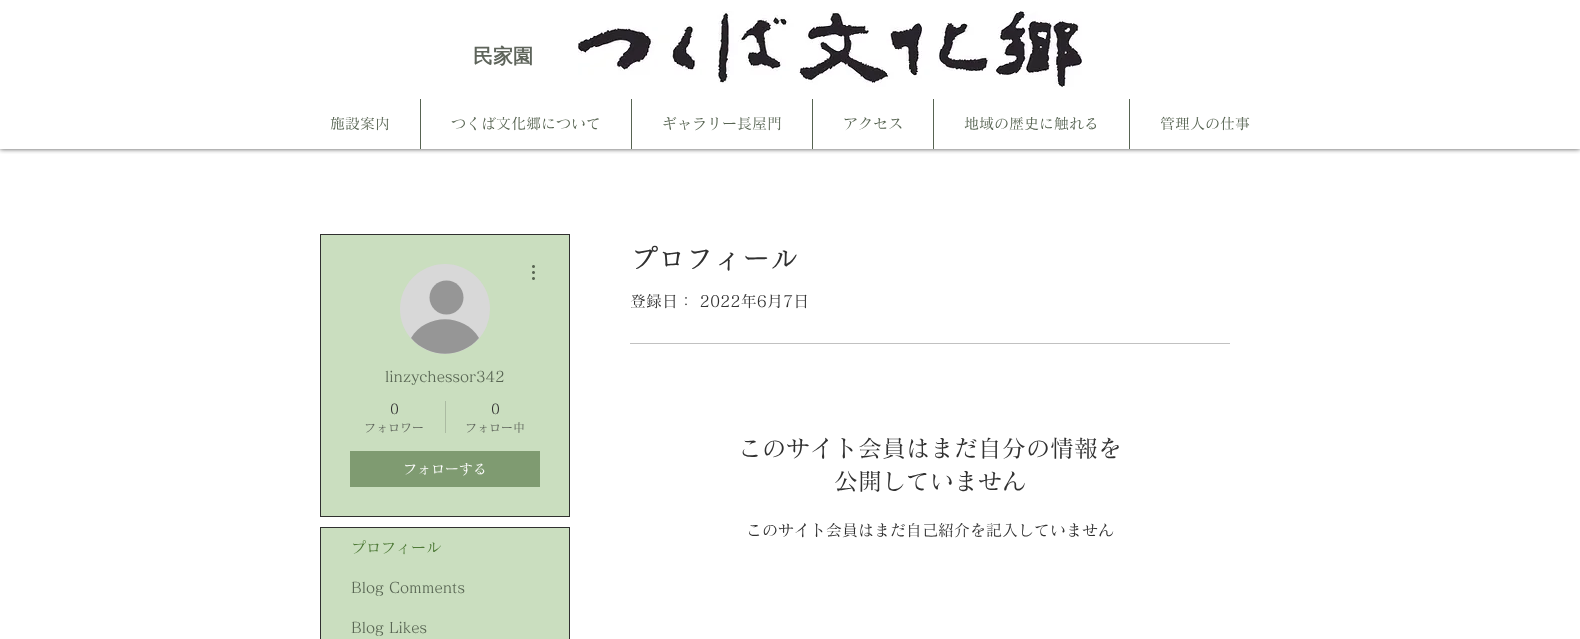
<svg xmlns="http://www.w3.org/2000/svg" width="1580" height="639">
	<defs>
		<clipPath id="clip1"><rect x="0" y="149" width="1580" height="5" /></clipPath>
	</defs>
	<rect width="100%" height="100%" fill="#FFFFFF" />
	<g clip-path="url(#clip1)">
		<rect x="0" y="0" width="1580" height="149" fill="#000000" fill-opacity="0.7" filter="blur(2.5px)" />
	</g>
	<text x="473" y="63" font-family="WenQuanYi Zen Hei" font-size="20" font-weight="700" fill="#5E645B">民家園</text>
	<image x="578" y="11" width="504" height="76" href="assets/img1.png" />
	<text x="330" y="129" font-family="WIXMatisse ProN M" font-size="15" font-weight="500" fill="#576452">施設案内</text>
	<rect x="420" y="99" width="1" height="50" fill="#576452" />
	<text x="451" y="129" font-family="WIXMatisse ProN M" font-size="15" font-weight="500" fill="#576452">つくば文化郷について</text>
	<rect x="631" y="99" width="1" height="50" fill="#576452" />
	<text x="662" y="129" font-family="WIXMatisse ProN M" font-size="15" font-weight="500" fill="#576452">ギャラリー長屋門</text>
	<rect x="812" y="99" width="1" height="50" fill="#576452" />
	<text x="843" y="129" font-family="WIXMatisse ProN M" font-size="15" font-weight="500" fill="#576452">アクセス</text>
	<rect x="933" y="99" width="1" height="50" fill="#576452" />
	<text x="964" y="129" font-family="WIXMatisse ProN M" font-size="15" font-weight="500" fill="#576452">地域の歴史に触れる</text>
	<rect x="1129" y="99" width="1" height="50" fill="#576452" />
	<text x="1160" y="129" font-family="WIXMatisse ProN M" font-size="15" font-weight="500" fill="#576452">管理人の仕事</text>
	<rect x="320.5" y="234.5" width="249" height="282" fill="#CADEBF" stroke="#303030" />
	<circle cx="445" cy="309" r="45" fill="#D8D8D8" />
	<circle cx="446.5" cy="297.5" r="17" fill="#969696" />
	<path d="M479 338C461 359 429 359 411 338C426 313 464 313 479 338Z" fill="#969696" />
	<image x="532" y="265" width="3" height="15" href="assets/img2.png" />
	<text x="385" y="382" font-family="WIXMatisse ProN M" font-size="15" font-weight="500" fill="#576452">linzychessor342</text>
	<text x="390" y="414" font-family="WIXMatisse ProN M" font-size="14" font-weight="500" fill="#303030">0</text>
	<text x="364" y="432" font-family="WIXMatisse ProN M" font-size="12" font-weight="500" fill="#5E645B">フォロワー</text>
	<rect x="445" y="401" width="1" height="32" fill="#ABBBA2" />
	<text x="491" y="414" font-family="WIXMatisse ProN M" font-size="14" font-weight="500" fill="#303030">0</text>
	<text x="465" y="432" font-family="WIXMatisse ProN M" font-size="12" font-weight="500" fill="#5E645B">フォロー中</text>
	<rect x="350" y="451" width="190" height="36" fill="#7F9B71" />
	<text x="403" y="474" font-family="WIXMatisse ProN M" font-size="14" font-weight="500" fill="#FFFFFF">フォローする</text>
	<rect x="320.5" y="527.5" width="249" height="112" fill="none" stroke="#303030" />
	<rect x="321" y="528" width="248" height="111" fill="#CADEBF" />
	<text x="351" y="553" font-family="WIXMatisse ProN M" font-size="15" font-weight="500" fill="#4E7A37">プロフィール</text>
	<g font-family="WIXMatisse ProN M" font-size="15" font-weight="500" fill="#576452">
		<text x="351" y="593">Blog Comments</text>
		<text x="351" y="633">Blog Likes</text>
	</g>
	<text x="630" y="269" font-family="'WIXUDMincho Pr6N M'" font-size="28" font-weight="500" fill="#303030">プロフィール</text>
	<text x="630" y="307" font-family="WIXMatisse ProN M" font-size="16" font-weight="500" fill="#303030">登録日： 2022年6月7日</text>
	<rect x="630" y="343" width="600" height="1" fill="#C1C1C1" />
	<g font-family="WIXMatisse ProN M" font-size="24" font-weight="500" fill="#303030">
		<text x="738" y="457">このサイト会員はまだ自分の情報を</text>
		<text x="834" y="490">公開していません</text>
	</g>
	<text x="746" y="536" font-family="WIXMatisse ProN M" font-size="16" font-weight="500" fill="#303030">このサイト会員はまだ自己紹介を記入していません</text>
</svg>
